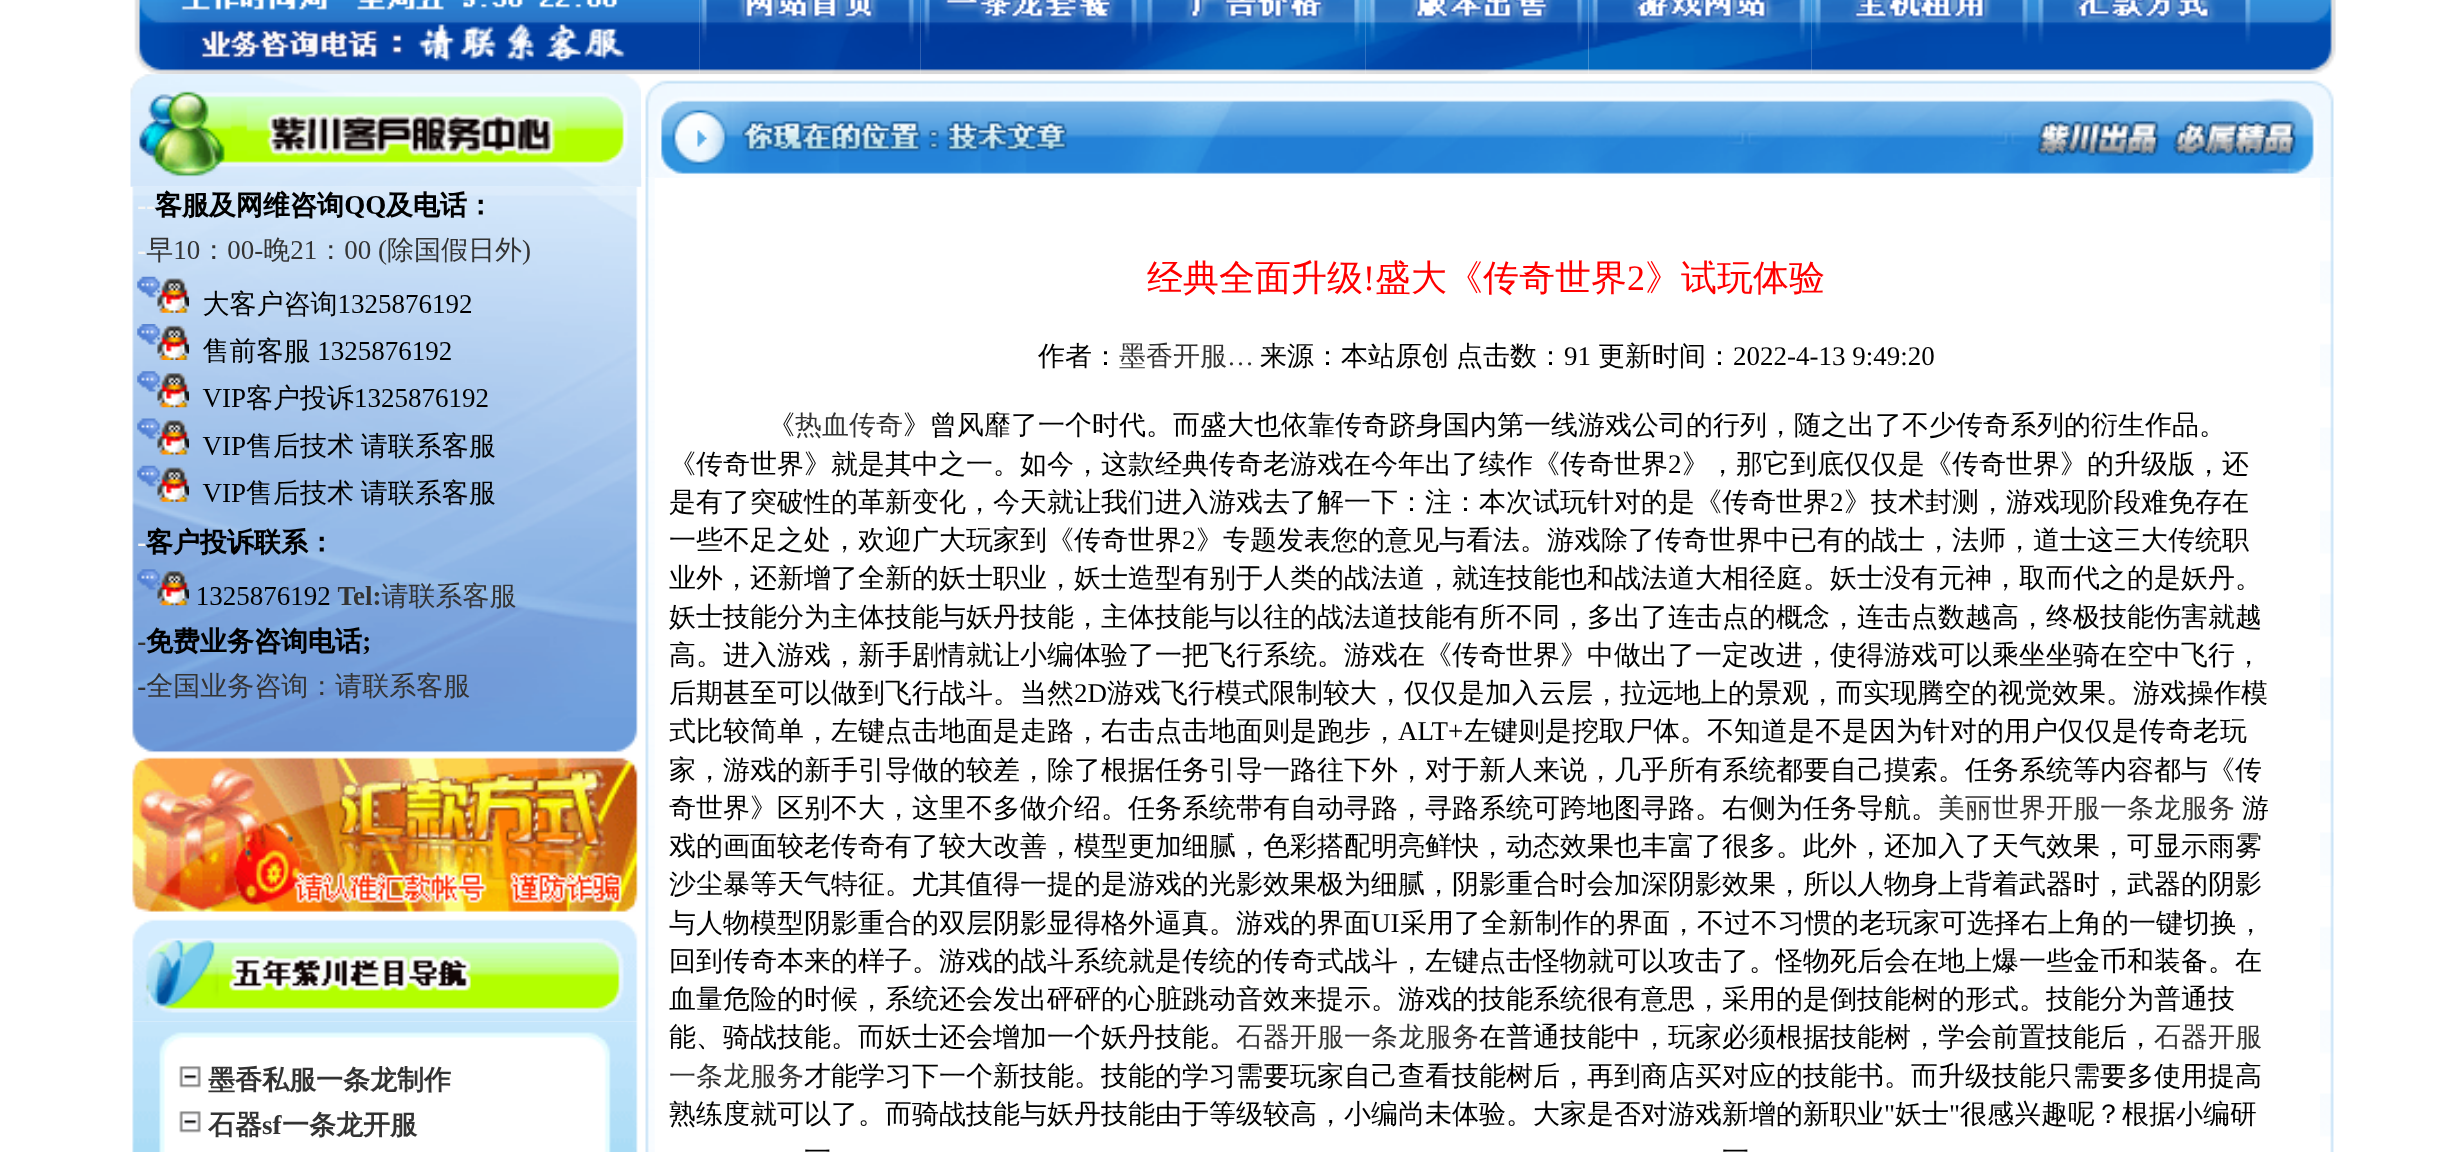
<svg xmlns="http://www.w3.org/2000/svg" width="2462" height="1152">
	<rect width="100%" height="100%" fill="#FFFFFF" />
	<image x="134" y="0" width="566" height="75" href="assets/img1.png" />
	<image x="699" y="0" width="222" height="75" href="assets/img2.png" />
	<image x="920" y="0" width="223" height="75" href="assets/img3.png" />
	<image x="1143" y="0" width="223" height="75" href="assets/img4.png" />
	<image x="1365" y="0" width="224" height="75" href="assets/img5.png" />
	<image x="1588" y="0" width="224" height="75" href="assets/img6.png" />
	<image x="1811" y="0" width="223" height="75" href="assets/img7.png" />
	<image x="2034" y="0" width="302" height="75" href="assets/img8.png" />
	<image x="132" y="186" width="506" height="567" href="assets/img10.png" />
	<image x="130" y="74" width="512" height="113" href="assets/img9.png" />
	<image x="137" y="190" width="393" height="509" href="assets/img11.png" />
	<image x="132" y="757" width="506" height="155" href="assets/img12.png" />
	<image x="132" y="1021" width="506" height="131" href="assets/img14.png" />
	<image x="132" y="919" width="506" height="103" href="assets/img13.png" />
	<image x="179" y="1066" width="22" height="22" href="assets/img15.png" />
	<text x="208" y="1089" font-family="WenQuanYi Zen Hei" font-size="27" font-weight="700" fill="#333333">墨香私服一条龙制作</text>
	<image x="179" y="1111" width="22" height="22" href="assets/img15.png" />
	<text x="208" y="1134" font-family="WenQuanYi Zen Hei" font-size="27" font-weight="700" fill="#333333">石器</text>
	<text x="262" y="1134" font-family="Liberation Serif" font-size="27" font-weight="700" fill="#333333">sf</text>
	<text x="282" y="1134" font-family="WenQuanYi Zen Hei" font-size="27" font-weight="700" fill="#333333">一条龙开服</text>
	<image x="645" y="177" width="10" height="975" href="assets/img17.png" />
	<image x="2320" y="177" width="14" height="975" href="assets/img18.png" />
	<image x="641" y="74" width="1693" height="104" href="assets/img16.png" />
	<text x="1147" y="290" font-family="WenQuanYi Zen Hei" font-size="36" font-weight="500" fill="#FF0000">经典全面升级</text>
	<text x="1363" y="290" font-family="Liberation Serif" font-size="36" fill="#FF0000">!</text>
	<text x="1375" y="290" font-family="WenQuanYi Zen Hei" font-size="36" font-weight="500" fill="#FF0000">盛大《传奇世界</text>
	<text x="1627" y="290" font-family="Liberation Serif" font-size="36" fill="#FF0000">2</text>
	<text x="1645" y="290" font-family="WenQuanYi Zen Hei" font-size="36" font-weight="500" fill="#FF0000">》试玩体验</text>
	<text x="1038" y="365" font-family="WenQuanYi Zen Hei" font-size="27" font-weight="500" fill="#000000">作者：</text>
	<text x="1119" y="365" font-family="WenQuanYi Zen Hei" font-size="27" font-weight="500" fill="#333333">墨香开服</text>
	<text x="1227" y="365" font-family="Liberation Serif" font-size="27" fill="#333333">…</text>
	<text x="1260" y="365" word-spacing="-1" font-family="WenQuanYi Zen Hei" font-size="27" font-weight="500" fill="#000000">来源：本站原创 点击数：</text>
	<text x="1564" y="365" font-family="Liberation Serif" font-size="27" fill="#000000">91</text>
	<text x="1598" y="365" font-family="WenQuanYi Zen Hei" font-size="27" font-weight="500" fill="#000000">更新时间：</text>
	<text x="1733" y="365" font-family="Liberation Serif" font-size="27" fill="#000000">2022-4-13 9:49:20</text>
	<text x="768" y="434" font-family="WenQuanYi Zen Hei" font-size="27" font-weight="500" fill="#000000">《</text>
	<text x="795" y="434" font-family="WenQuanYi Zen Hei" font-size="27" font-weight="500" fill="#333333">热血传奇</text>
	<g font-family="WenQuanYi Zen Hei" font-size="27" font-weight="500" fill="#000000">
		<text x="903" y="434">》曾风靡了一个时代。而盛大也依靠传奇跻身国内第一线游戏公司的行列，随之出了不少传奇系列的衍生作品。</text>
		<text x="669" y="473">《传奇世界》就是其中之一。如今，这款经典传奇老游戏在今年出了续作《传奇世界</text>
	</g>
	<text x="1668" y="473" font-family="Liberation Serif" font-size="27" fill="#000000">2</text>
	<g font-family="WenQuanYi Zen Hei" font-size="27" font-weight="500" fill="#000000">
		<text x="1682" y="473">》，那它到底仅仅是《传奇世界》的升级版，还</text>
		<text x="669" y="511">是有了突破性的革新变化，今天就让我们进入游戏去了解一下：注：本次试玩针对的是《传奇世界</text>
	</g>
	<text x="1830" y="511" font-family="Liberation Serif" font-size="27" fill="#000000">2</text>
	<g font-family="WenQuanYi Zen Hei" font-size="27" font-weight="500" fill="#000000">
		<text x="1844" y="511">》技术封测，游戏现阶段难免存在</text>
		<text x="669" y="549">一些不足之处，欢迎广大玩家到《传奇世界</text>
	</g>
	<text x="1182" y="549" font-family="Liberation Serif" font-size="27" fill="#000000">2</text>
	<g font-family="WenQuanYi Zen Hei" font-size="27" font-weight="500" fill="#000000">
		<text x="1196" y="549">》专题发表您的意见与看法。游戏除了传奇世界中已有的战士，法师，道士这三大传统职</text>
		<text x="669" y="587">业外，还新增了全新的妖士职业，妖士造型有别于人类的战法道，就连技能也和战法道大相径庭。妖士没有元神，取而代之的是妖丹。</text>
		<text x="669" y="626">妖士技能分为主体技能与妖丹技能，主体技能与以往的战法道技能有所不同，多出了连击点的概念，连击点数越高，终极技能伤害就越</text>
		<text x="669" y="664">高。进入游戏，新手剧情就让小编体验了一把飞行系统。游戏在《传奇世界》中做出了一定改进，使得游戏可以乘坐坐骑在空中飞行，</text>
		<text x="669" y="702">后期甚至可以做到飞行战斗。当然</text>
	</g>
	<text x="1074" y="702" font-family="Liberation Serif" font-size="27" fill="#000000">2D</text>
	<g font-family="WenQuanYi Zen Hei" font-size="27" font-weight="500" fill="#000000">
		<text x="1107" y="702">游戏飞行模式限制较大，仅仅是加入云层，拉远地上的景观，而实现腾空的视觉效果。游戏操作模</text>
		<text x="669" y="740">式比较简单，左键点击地面是走路，右击点击地面则是跑步，</text>
	</g>
	<text x="1398" y="740" font-family="Liberation Serif" font-size="27" fill="#000000">ALT+</text>
	<g font-family="WenQuanYi Zen Hei" font-size="27" font-weight="500" fill="#000000">
		<text x="1464" y="740">左键则是挖取尸体。不知道是不是因为针对的用户仅仅是传奇老玩</text>
		<text x="669" y="779">家，游戏的新手引导做的较差，除了根据任务引导一路往下外，对于新人来说，几乎所有系统都要自己摸索。任务系统等内容都与《传</text>
		<text x="669" y="817">奇世界》区别不大，这里不多做介绍。任务系统带有自动寻路，寻路系统可跨地图寻路。右侧为任务导航。</text>
	</g>
	<text x="1938" y="817" font-family="WenQuanYi Zen Hei" font-size="27" font-weight="500" fill="#333333">美丽世界开服一条龙服务</text>
	<g font-family="WenQuanYi Zen Hei" font-size="27" font-weight="500" fill="#000000">
		<text x="2242" y="817">游</text>
		<text x="669" y="855">戏的画面较老传奇有了较大改善，模型更加细腻，色彩搭配明亮鲜快，动态效果也丰富了很多。此外，还加入了天气效果，可显示雨雾</text>
		<text x="669" y="893">沙尘暴等天气特征。尤其值得一提的是游戏的光影效果极为细腻，阴影重合时会加深阴影效果，所以人物身上背着武器时，武器的阴影</text>
		<text x="669" y="932">与人物模型阴影重合的双层阴影显得格外逼真。游戏的界面</text>
	</g>
	<text x="1371" y="932" font-family="Liberation Serif" font-size="27" fill="#000000">UI</text>
	<g font-family="WenQuanYi Zen Hei" font-size="27" font-weight="500" fill="#000000">
		<text x="1400" y="932">采用了全新制作的界面，不过不习惯的老玩家可选择右上角的一键切换，</text>
		<text x="669" y="970">回到传奇本来的样子。游戏的战斗系统就是传统的传奇式战斗，左键点击怪物就可以攻击了。怪物死后会在地上爆一些金币和装备。在</text>
		<text x="669" y="1008">血量危险的时候，系统还会发出砰砰的心脏跳动音效来提示。游戏的技能系统很有意思，采用的是倒技能树的形式。技能分为普通技</text>
		<text x="669" y="1046">能、骑战技能。而妖士还会增加一个妖丹技能。</text>
	</g>
	<text x="1236" y="1046" font-family="WenQuanYi Zen Hei" font-size="27" font-weight="500" fill="#333333">石器开服一条龙服务</text>
	<text x="1479" y="1046" font-family="WenQuanYi Zen Hei" font-size="27" font-weight="500" fill="#000000">在普通技能中，玩家必须根据技能树，学会前置技能后，</text>
	<g font-family="WenQuanYi Zen Hei" font-size="27" font-weight="500" fill="#333333">
		<text x="2154" y="1046">石器开服</text>
		<text x="669" y="1085">一条龙服务</text>
	</g>
	<g font-family="WenQuanYi Zen Hei" font-size="27" font-weight="500" fill="#000000">
		<text x="804" y="1085">才能学习下一个新技能。技能的学习需要玩家自己查看技能树后，再到商店买对应的技能书。而升级技能只需要多使用提高</text>
		<text x="669" y="1123">熟练度就可以了。而骑战技能与妖丹技能由于等级较高，小编尚未体验。大家是否对游戏新增的新职业</text>
	</g>
	<text x="1884" y="1123" font-family="Liberation Serif" font-size="27" fill="#000000">"</text>
	<text x="1895" y="1123" font-family="WenQuanYi Zen Hei" font-size="27" font-weight="500" fill="#000000">妖士</text>
	<text x="1949" y="1123" font-family="Liberation Serif" font-size="27" fill="#000000">"</text>
	<g font-family="WenQuanYi Zen Hei" font-size="27" font-weight="500" fill="#000000">
		<text x="1960" y="1123">很感兴趣呢？根据小编研</text>
		<text x="804" y="1161">一</text>
		<text x="1722" y="1161">一</text>
	</g>
	<image x="2320" y="832" width="14" height="54" href="assets/img19.png" />
</svg>
